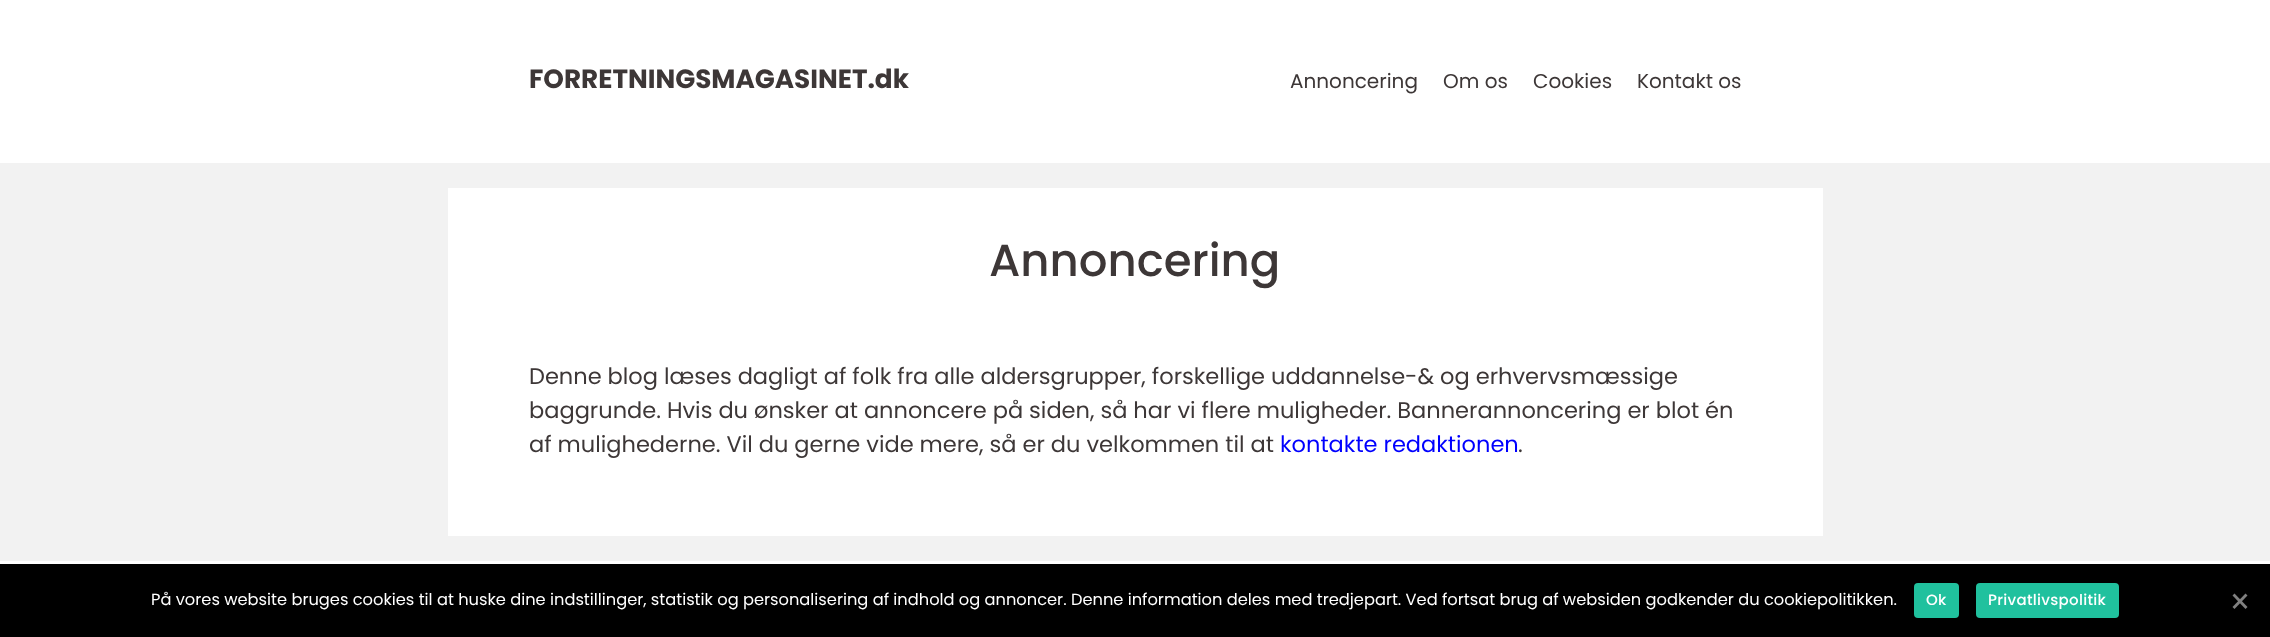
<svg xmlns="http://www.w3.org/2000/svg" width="2270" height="637">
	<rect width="100%" height="100%" fill="#F2F2F2" />
	<rect x="0" y="0" width="2270" height="163" fill="#FFFFFF" />
	<text x="529" y="88" font-family="Poppins" font-size="26.25" font-weight="700" fill="#3D3737">FORRETNINGSMAGASINET.dk</text>
	<g font-family="Poppins" font-size="20" fill="#3D3737">
		<text x="1290" y="88">Annoncering</text>
		<text x="1443" y="88">Om os</text>
		<text x="1533" y="88">Cookies</text>
		<text x="1637" y="88">Kontakt os</text>
	</g>
	<rect x="448" y="188" width="1375" height="348" fill="#FFFFFF" />
	<text x="989" y="276" font-family="Poppins" font-size="45" font-weight="500" fill="#3D3737">Annoncering</text>
	<g font-family="Poppins" font-size="22.5" fill="#3D3737">
		<text x="529" y="384">Denne blog læses dagligt af folk fra alle aldersgrupper, forskellige uddannelse-&amp; og erhvervsmæssige</text>
		<text x="529" y="418">baggrunde. Hvis du ønsker at annoncere på siden, så har vi flere muligheder. Bannerannoncering er blot én</text>
		<text x="529" y="452">af mulighederne. Vil du gerne vide mere, så er du velkommen til at</text>
	</g>
	<text x="1280" y="452" font-family="Poppins" font-size="22.5" fill="#0000FF">kontakte redaktionen</text>
	<text x="1518" y="452" font-family="Poppins" font-size="22.5" fill="#3D3737">.</text>
	<rect x="0" y="561" width="2270" height="3" fill="#FFFFFF" />
	<rect x="0" y="564" width="2270" height="73" fill="#000000" />
	<text x="151" y="605" font-family="Poppins" font-size="16.25" fill="#FFFFFF">På vores website bruges cookies til at huske dine indstillinger, statistik og personalisering af indhold og annoncer. Denne information deles med tredjepart. Ved fortsat brug af websiden godkender du cookiepolitikken.</text>
	<rect x="1914" y="583" width="45" height="35" rx="4" fill="#20C19E" />
	<text x="1926" y="605" font-family="Poppins" font-size="15" font-weight="500" letter-spacing="0.3" fill="#FFFFFF">Ok</text>
	<rect x="1976" y="583" width="143" height="35" rx="4" fill="#20C19E" />
	<text x="1988" y="605" font-family="Poppins" font-size="15" font-weight="500" letter-spacing="0.3" fill="#FFFFFF">Privatlivspolitik</text>
	<path d="M2245.5 593.5L2247.5 595.5L2234.5 609L2232.5 607Z" fill="#808080" />
	<path d="M2232.5 595.5L2234.5 593.5L2247.5 607L2245.5 609Z" fill="#808080" />
</svg>
